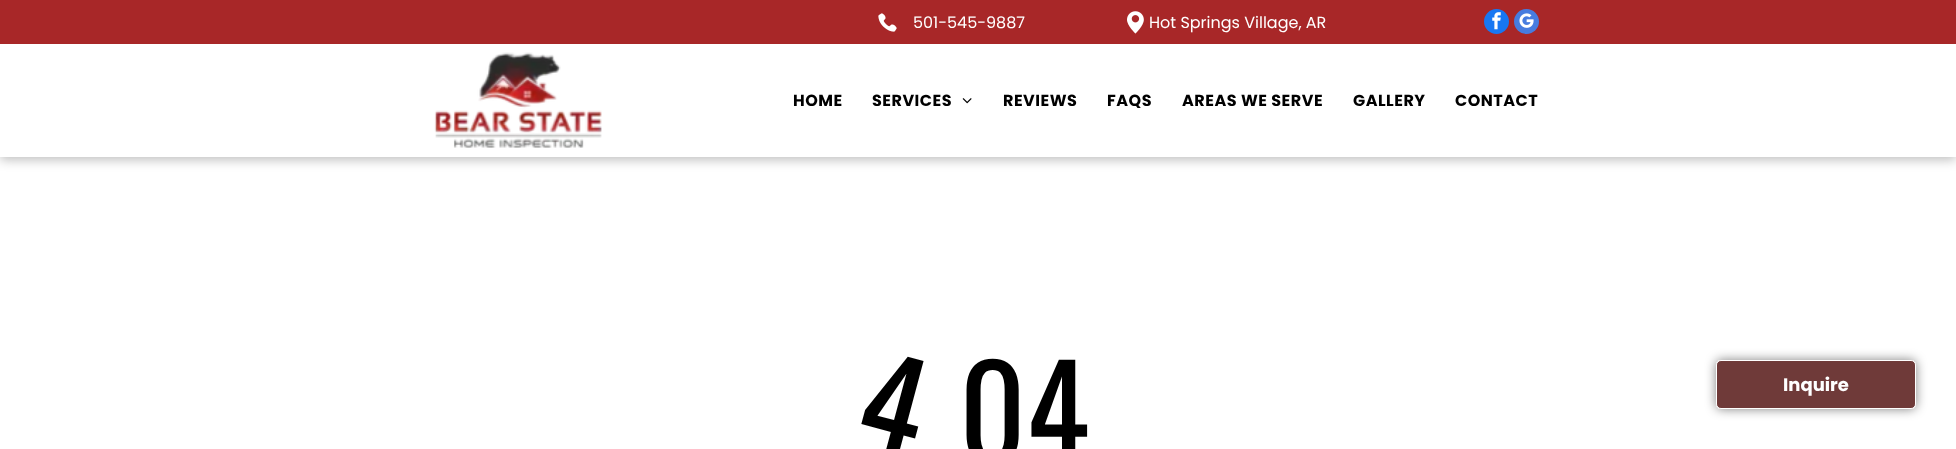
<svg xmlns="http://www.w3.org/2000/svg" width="1956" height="449">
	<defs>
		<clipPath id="clip1"><path d="M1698 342H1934V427H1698ZM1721 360H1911C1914 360 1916 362 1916 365V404C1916 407 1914 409 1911 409H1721C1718 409 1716 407 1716 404V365C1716 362 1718 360 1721 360Z" clip-rule="evenodd" /></clipPath>
	</defs>
	<rect width="100%" height="100%" fill="#FFFFFF" />
	<rect x="0" y="3" width="1956" height="157" fill="#000000" fill-opacity="0.25" filter="blur(5.5px)" />
	<rect x="0" y="0" width="1956" height="44" fill="#A82728" />
	<image x="878" y="13" width="19" height="19" href="assets/img1.png" />
	<text x="913" y="28" font-family="Poppins" font-size="16" fill="#FFFFFF">501-545-9887</text>
	<image x="1127" y="11" width="17" height="23" href="assets/img2.png" />
	<text x="1149" y="28" font-family="Poppins" font-size="16" fill="#FFFFFF">Hot Springs Village, AR</text>
	<circle cx="1496.5" cy="21.5" r="12.5" fill="#1877F2" />
	<image x="1492" y="12" width="9" height="18" href="assets/img3.png" />
	<circle cx="1526.5" cy="21.5" r="12.5" fill="#477CDF" />
	<image x="1519" y="13" width="15" height="15" href="assets/img4.png" />
	<rect x="0" y="44" width="1956" height="113" fill="#FFFFFF" />
	<image x="434" y="52" width="168" height="96" href="assets/img5.png" />
	<g font-family="Poppins" font-size="16" font-weight="700" letter-spacing="0.5" fill="#000000">
		<text x="793" y="106">HOME</text>
		<text x="872" y="106">SERVICES</text>
	</g>
	<image x="962" y="98" width="10" height="6" href="assets/img6.png" />
	<g font-family="Poppins" font-size="16" font-weight="700" letter-spacing="0.5" fill="#000000">
		<text x="1003" y="106">REVIEWS</text>
		<text x="1107" y="106">FAQS</text>
		<text x="1182" y="106">AREAS WE SERVE</text>
		<text x="1353" y="106">GALLERY</text>
		<text x="1455" y="106">CONTACT</text>
	</g>
	<g font-family="Oswald" font-size="130" fill="#000000">
		<text x="849" y="450" transform="rotate(15 849 450)">4</text>
		<text x="959" y="465">04</text>
	</g>
	<g clip-path="url(#clip1)">
		<rect x="1716" y="360" width="200" height="49" rx="5" fill="#000000" fill-opacity="0.5" filter="blur(5.5px)" />
	</g>
	<rect x="1716.5" y="360.5" width="199" height="48" rx="4.5" fill="#5F2523" fill-opacity="0.9" stroke="#FFFFFF" />
	<text x="1783" y="391" font-family="Poppins" font-size="18" font-weight="700" fill="#FFFFFF">Inquire</text>
</svg>
